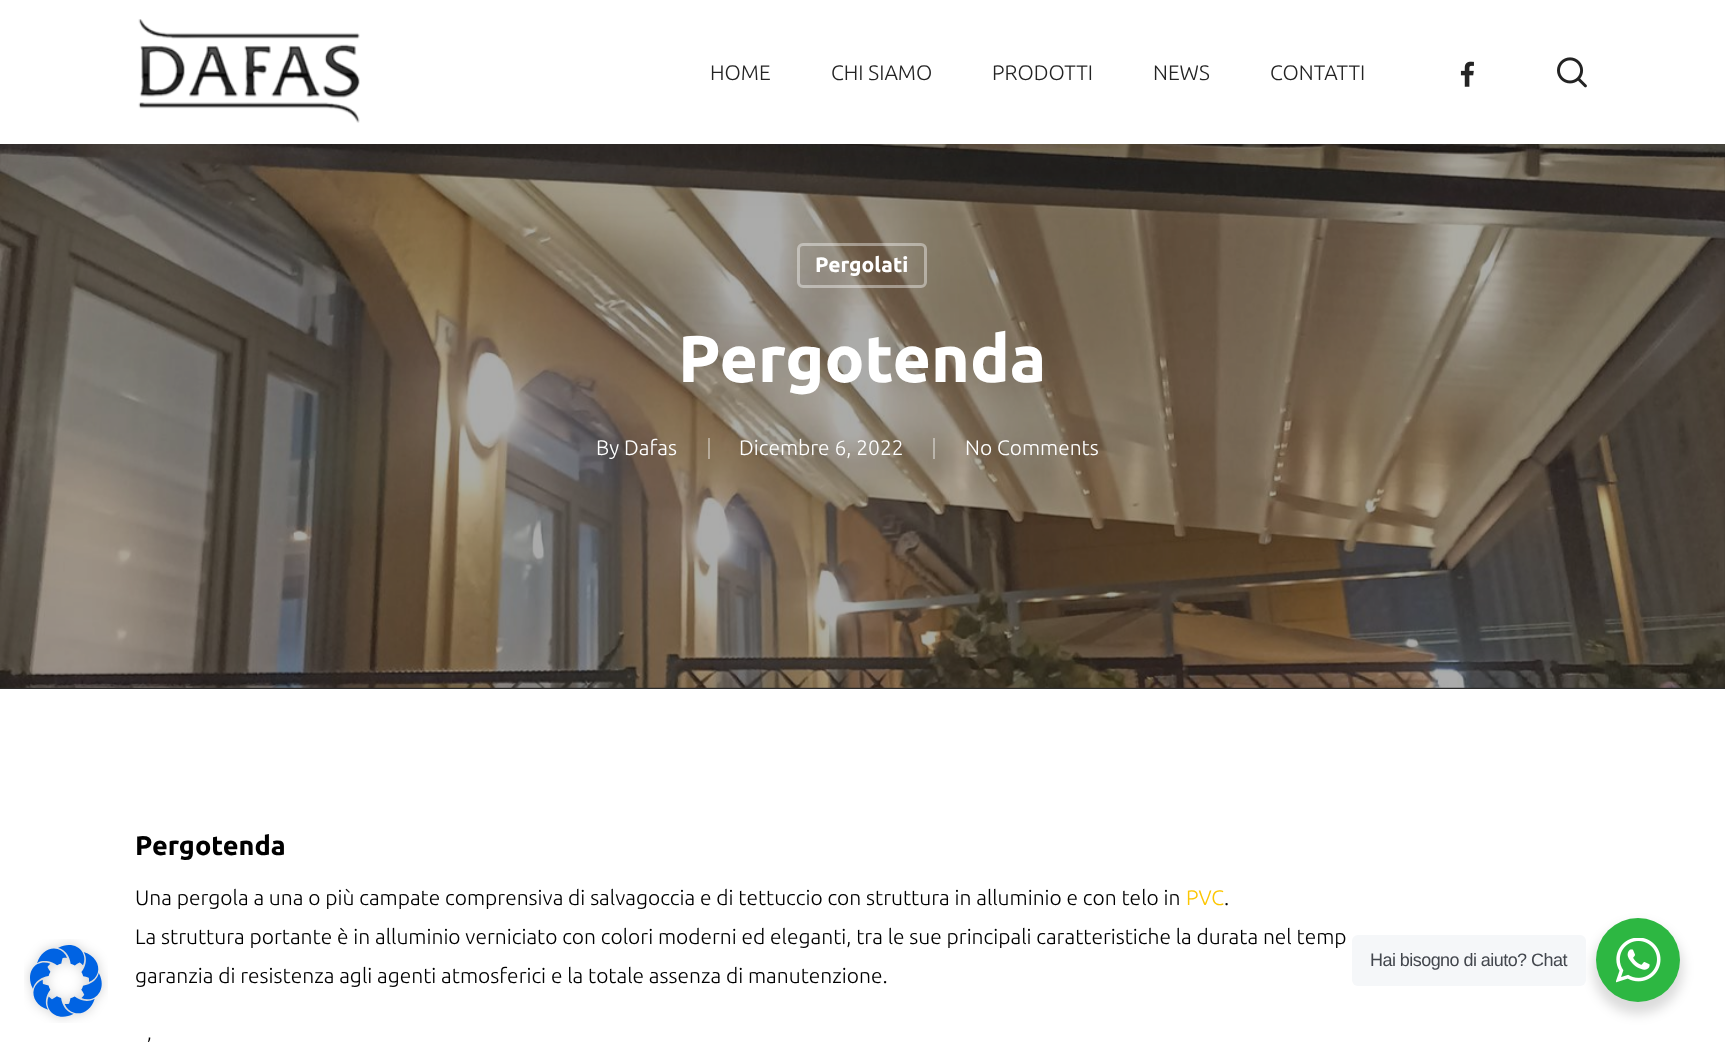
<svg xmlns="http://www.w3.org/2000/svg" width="1725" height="1047">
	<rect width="100%" height="100%" fill="#FFFFFF" />
	<image x="24" y="939" width="84" height="84" href="assets/img1.png" />
	<rect x="0" y="144" width="1725" height="545" fill="#2D2D2D" />
	<image x="0" y="144" width="1725" height="544" href="assets/img5.png" />
	<rect x="798.5" y="244.5" width="127" height="42" rx="4.5" fill="none" stroke="#FFFFFF" stroke-opacity="0.4" stroke-width="3" />
	<rect x="0" y="5" width="1725" height="144" fill="#000000" fill-opacity="0.15" filter="blur(34px)" />
	<rect x="0" y="0" width="1725" height="144" fill="#FFFFFF" />
	<image x="138" y="19" width="222" height="104" href="assets/img2.png" />
	<g font-family="Ubuntu" font-size="21" font-weight="300" fill="#232323">
		<text x="710" y="80">HOME</text>
		<text x="831" y="80">CHI SIAMO</text>
		<text x="992" y="80">PRODOTTI</text>
		<text x="1153" y="80">NEWS</text>
		<text x="1270" y="80">CONTATTI</text>
	</g>
	<image x="1460" y="61" width="14" height="26" href="assets/img3.png" />
	<image x="1557" y="57" width="30" height="31" href="assets/img4.png" />
	<text x="815" y="272" font-family="Ubuntu" font-size="21" font-weight="700" fill="#FFFFFF">Pergolati</text>
	<text x="678" y="382" font-family="Ubuntu" font-size="66" font-weight="700" fill="#FFFFFF">Pergotenda</text>
	<g font-family="Ubuntu" font-size="21" font-weight="300" fill="#FFFFFF">
		<text x="596" y="455">By</text>
		<text x="624" y="455">Dafas</text>
	</g>
	<rect x="708" y="438" width="2" height="21" fill="#FFFFFF" fill-opacity="0.4" />
	<text x="739" y="455" font-family="Ubuntu" font-size="21" font-weight="300" fill="#FFFFFF">Dicembre 6, 2022</text>
	<rect x="933" y="438" width="2" height="21" fill="#FFFFFF" fill-opacity="0.4" />
	<text x="965" y="455" font-family="Ubuntu" font-size="21" font-weight="300" fill="#FFFFFF">No Comments</text>
	<text x="135" y="855" font-family="Ubuntu" font-size="27" font-weight="700" fill="#000000">Pergotenda</text>
	<text x="135" y="905" font-family="Ubuntu" font-size="21" font-weight="300" fill="#000000">Una pergola a una o più campate comprensiva di salvagoccia e di tettuccio con struttura in alluminio e con telo in</text>
	<text x="1186" y="905" font-family="Ubuntu" font-size="21" font-weight="300" fill="#FCC601">PVC</text>
	<g font-family="Ubuntu" font-size="21" font-weight="300" fill="#000000">
		<text x="1224" y="905">.</text>
		<text x="135" y="944">La struttura portante è in alluminio verniciato con colori moderni ed eleganti, tra le sue principali caratteristiche la durata nel temp</text>
		<text x="135" y="983">garanzia di resistenza agli agenti atmosferici e la totale assenza di manutenzione.</text>
		<text x="147" y="1053">’</text>
	</g>
	<rect x="1593" y="924" width="90" height="90" rx="45" fill="#000000" fill-opacity="0.14" filter="blur(6px)" />
	<rect x="1352" y="935" width="234" height="51" rx="6" fill="#F5F7F9" />
	<text x="1370" y="966" font-family="Liberation Sans" font-size="18" letter-spacing="-0.55" fill="#43474E">Hai bisogno di aiuto? Chat</text>
	<circle cx="1638" cy="960" r="42" fill="#2DB742" />
	<image x="1616" y="938" width="45" height="45" href="assets/img6.png" />
</svg>
